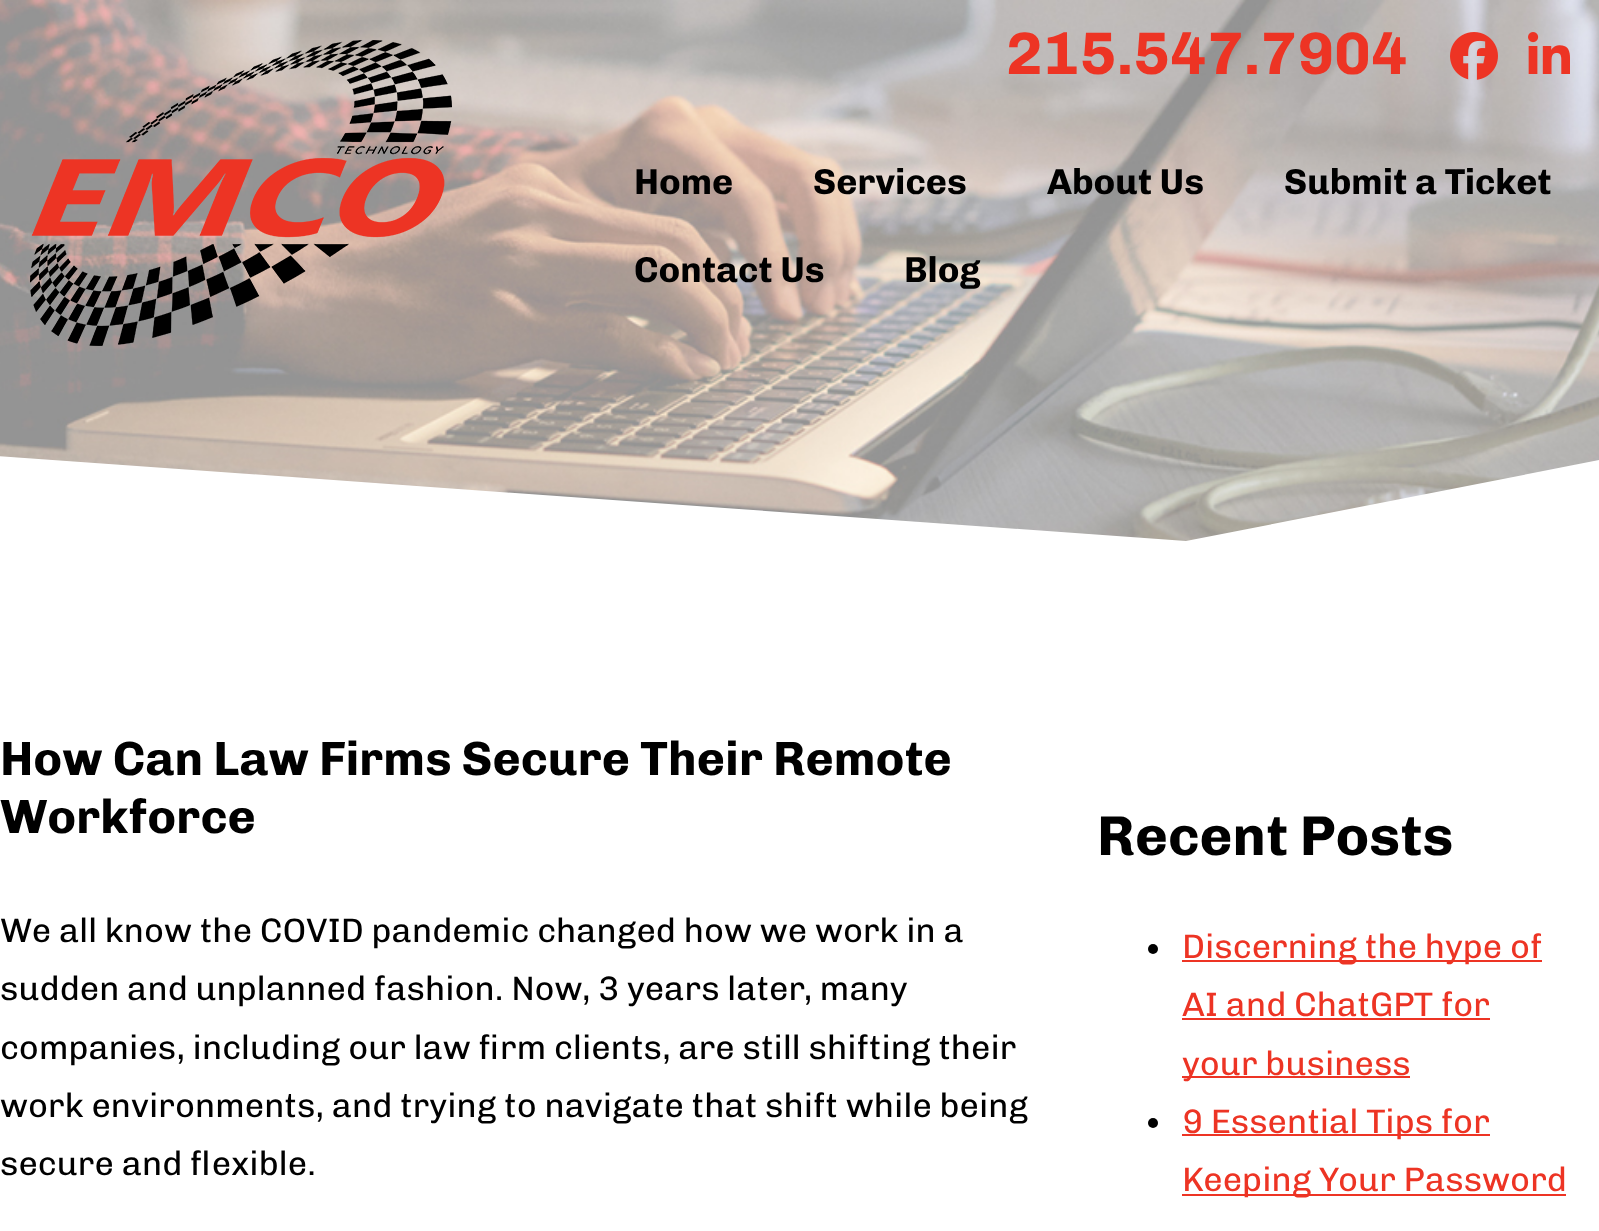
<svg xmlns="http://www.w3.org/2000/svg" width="1599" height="1231">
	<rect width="100%" height="100%" fill="#FFFFFF" />
	<image x="0" y="0" width="1599" height="541" href="assets/img1.png" />
	<path d="M1186 541L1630 454V574H-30V454Z" fill="#FFFFFF" />
	<image x="30" y="40" width="422" height="306" href="assets/img2.png" />
	<text x="1006" y="74" font-family="Chivo" font-size="60" font-weight="700" fill="#ED3424">215.547.7904</text>
	<image x="1450" y="32" width="48" height="48" href="assets/img3.png" />
	<image x="1528" y="32" width="42" height="42" href="assets/img4.png" />
	<g font-family="Chivo" font-size="36" font-weight="700" fill="#000000">
		<text x="634" y="194">Home</text>
		<text x="813" y="194">Services</text>
		<text x="1047" y="194">About Us</text>
		<text x="1284" y="194">Submit a Ticket</text>
		<text x="634" y="282">Contact Us</text>
		<text x="904" y="282">Blog</text>
	</g>
	<g font-family="Chivo" font-size="48" font-weight="700" fill="#000000">
		<text x="0" y="775">How Can Law Firms Secure Their Remote</text>
		<text x="0" y="833">Workforce</text>
	</g>
	<g font-family="Chivo" font-size="34" fill="#000000">
		<text x="0" y="942">We all know the COVID pandemic changed how we work in a</text>
		<text x="0" y="1000">sudden and unplanned fashion. Now, 3 years later, many</text>
		<text x="0" y="1059">companies, including our law firm clients, are still shifting their</text>
		<text x="0" y="1117">work environments, and trying to navigate that shift while being</text>
		<text x="0" y="1175">secure and flexible.</text>
	</g>
	<text x="1097" y="855" font-family="Chivo" font-size="56" font-weight="700" fill="#000000">Recent Posts</text>
	<circle cx="1153" cy="949" r="5" fill="#000000" />
	<rect x="1182" y="960" width="360" height="2" fill="#ED3424" />
	<g font-family="Chivo" font-size="34" fill="#ED3424">
		<text x="1182" y="958">Discerning the hype of</text>
		<text x="1182" y="1016">AI and ChatGPT for</text>
	</g>
	<rect x="1182" y="1018" width="308" height="2" fill="#ED3424" />
	<rect x="1182" y="1076" width="228" height="2" fill="#ED3424" />
	<text x="1182" y="1075" font-family="Chivo" font-size="34" fill="#ED3424">your business</text>
	<circle cx="1153" cy="1123" r="5" fill="#000000" />
	<rect x="1182" y="1134" width="308" height="2" fill="#ED3424" />
	<text x="1182" y="1133" font-family="Chivo" font-size="34" fill="#ED3424">9 Essential Tips for</text>
	<rect x="1182" y="1194" width="384" height="2" fill="#ED3424" />
	<text x="1182" y="1191" font-family="Chivo" font-size="34" fill="#ED3424">Keeping Your Password</text>
</svg>
